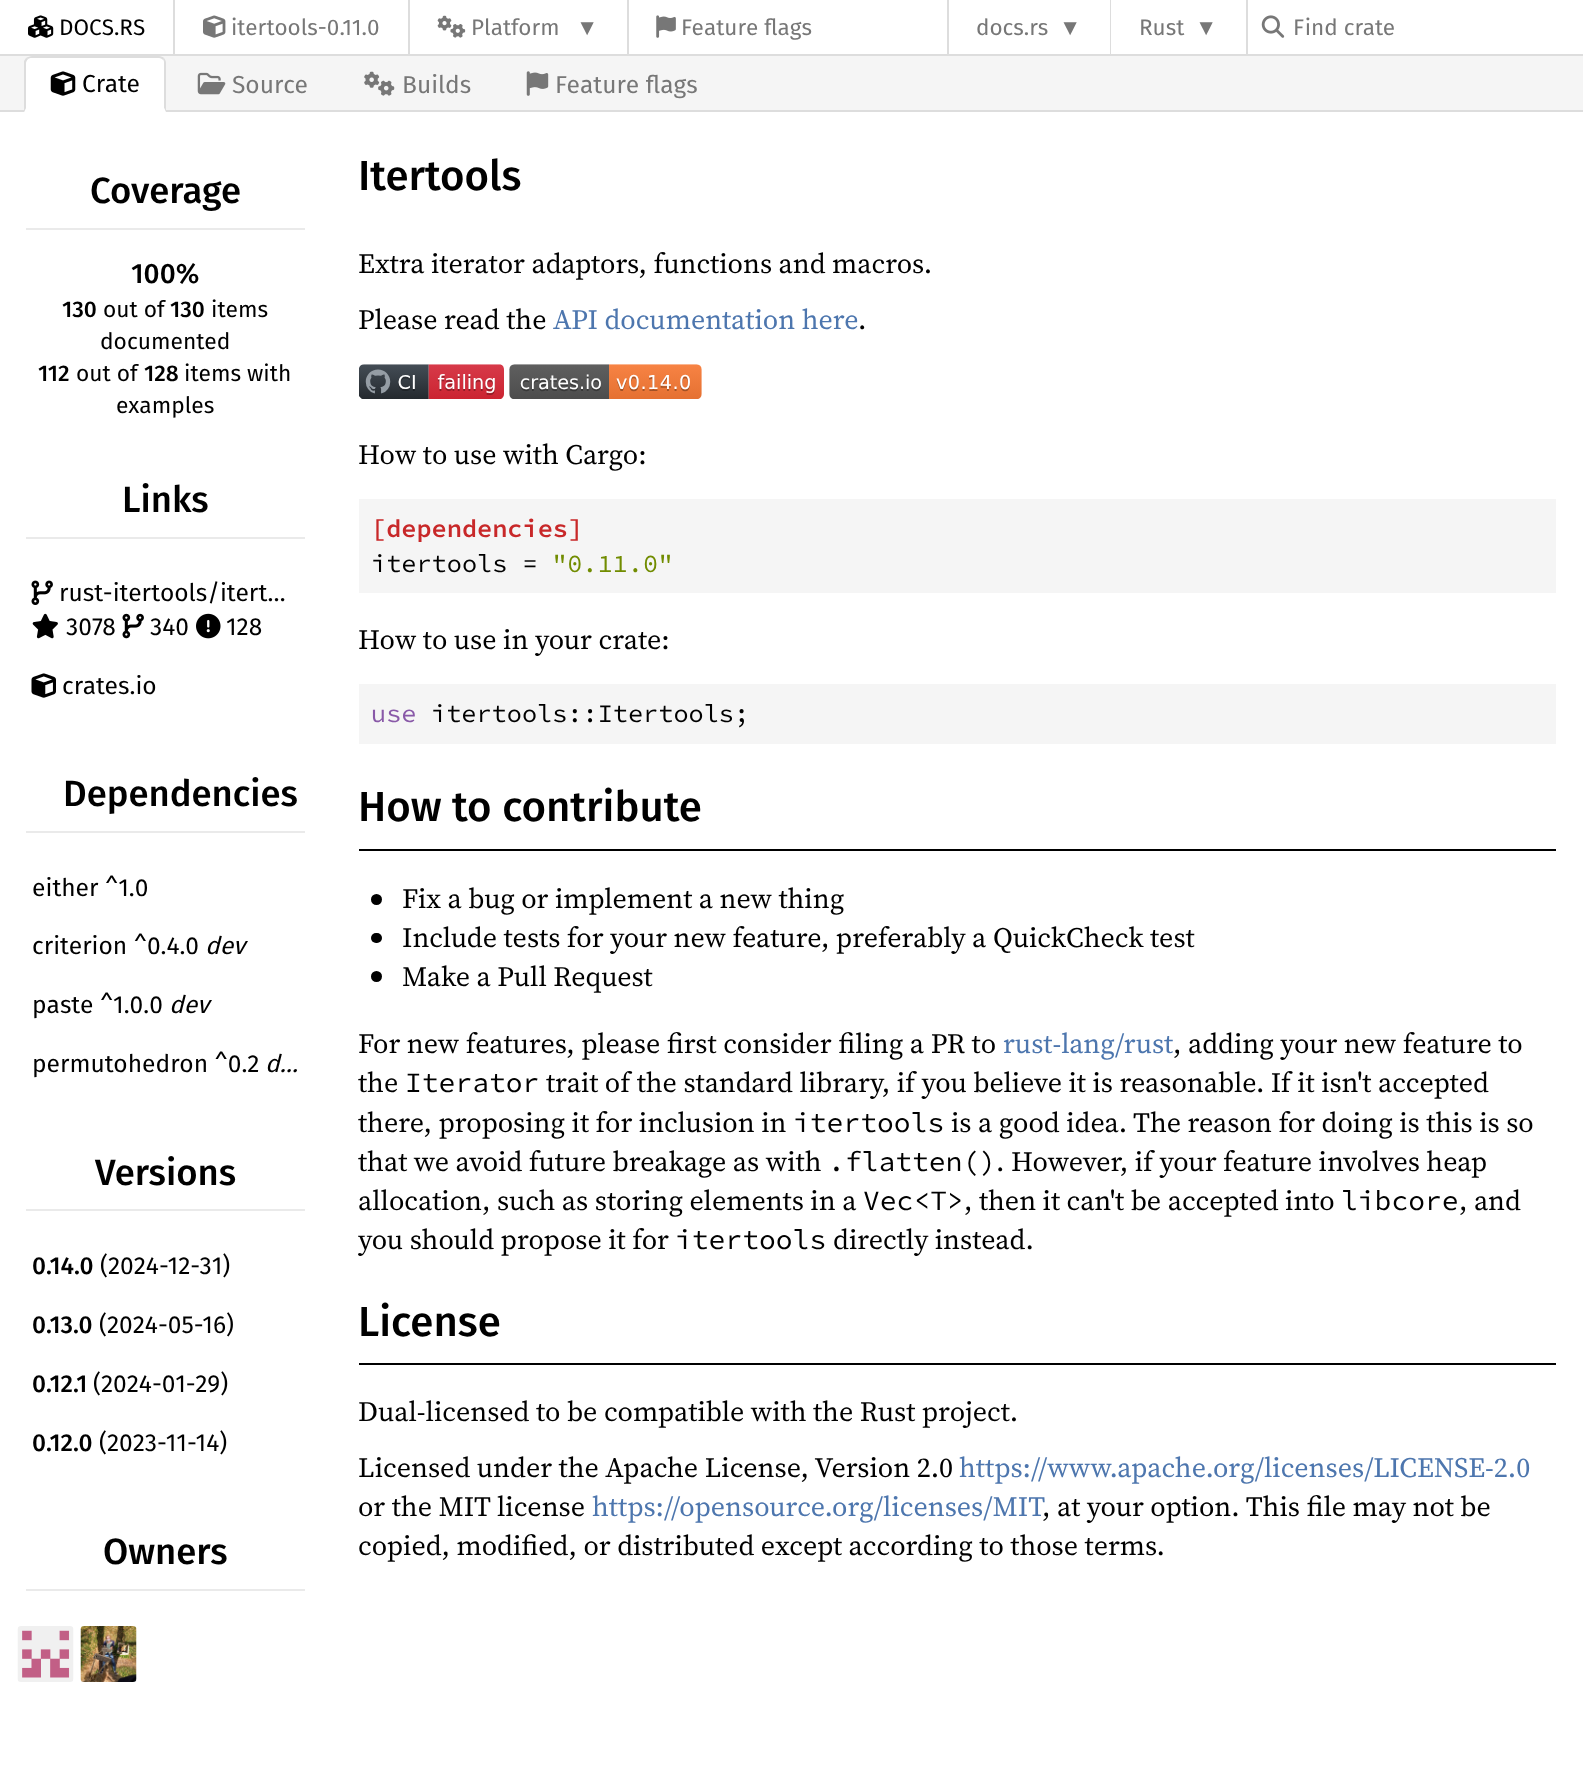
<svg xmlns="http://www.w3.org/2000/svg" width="1583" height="1787">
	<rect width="100%" height="100%" fill="#FFFFFF" />
	<rect x="0" y="54" width="1583" height="2" fill="#DDDDDD" />
	<image x="28" y="15" width="26" height="23" href="assets/img1.png" />
	<text x="59" y="35" font-family="Fira Sans" font-size="22.5" fill="#000000">DOCS.RS</text>
	<rect x="173" y="0" width="2" height="54" fill="#DDDDDD" />
	<image x="203" y="15" width="23" height="23" href="assets/img2.png" />
	<text x="231" y="35" font-family="Fira Sans" font-size="22.5" fill="#777777">itertools-0.11.0</text>
	<rect x="408" y="0" width="2" height="54" fill="#DDDDDD" />
	<image x="437" y="15" width="29" height="23" href="assets/img3.png" />
	<text x="471" y="35" font-family="Fira Sans" font-size="22.5" fill="#777777">Platform</text>
	<text x="576" y="35" font-family="Liberation Sans" font-size="22.5" fill="#777777">▼</text>
	<rect x="627" y="0" width="2" height="54" fill="#DDDDDD" />
	<image x="656" y="15" width="20" height="23" href="assets/img4.png" />
	<text x="681" y="35" font-family="Fira Sans" font-size="22.5" fill="#777777">Feature flags</text>
	<rect x="947" y="0" width="2" height="54" fill="#DDDDDD" />
	<text x="976" y="35" font-family="Fira Sans" font-size="22.5" fill="#777777">docs.rs</text>
	<text x="1059" y="35" font-family="Liberation Sans" font-size="22.5" fill="#777777">▼</text>
	<rect x="1110" y="0" width="1" height="54" fill="#DDDDDD" />
	<text x="1139" y="35" font-family="Fira Sans" font-size="22.5" fill="#777777">Rust</text>
	<text x="1195" y="35" font-family="Liberation Sans" font-size="22.5" fill="#777777">▼</text>
	<rect x="1246" y="0" width="2" height="54" fill="#DDDDDD" />
	<image x="1261" y="15" width="24" height="23" href="assets/img5.png" />
	<text x="1293" y="35" font-family="Fira Sans" font-size="22.5" fill="#777777">Find crate</text>
	<rect x="0" y="56" width="1583" height="54" fill="#F5F5F5" />
	<rect x="0" y="110" width="1583" height="2" fill="#DDDDDD" />
	<path d="M31 58H160C163 58 165 60 165 63V109H26V63C26 60 28 58 31 58Z" fill="#FFFFFF" />
	<path d="M32 56C30 56 28 57 26 58L28 59C29 58 30 58 32 58H159C161 58 162 59 163 60L164 58C163 57 161 56 159 56Z" fill="#DDDDDD" />
	<path d="M164 58C165 59 166 61 166 63V112L164 108V63C164 62 164 60 163 60Z" fill="#DDDDDD" />
	<path d="M24 112H166L164 108H26Z" fill="#FFFFFF" />
	<path d="M24 112V61L26 58L28 59C27 60 26 62 26 63V108Z" fill="#DDDDDD" />
	<image x="50" y="71" width="26" height="25" href="assets/img6.png" />
	<text x="82" y="92" font-family="Fira Sans" font-size="24.5" fill="#000000">Crate</text>
	<image x="197" y="72" width="29" height="23" href="assets/img7.png" />
	<text x="232" y="93" font-family="Fira Sans" font-size="24.5" fill="#777777">Source</text>
	<image x="364" y="71" width="31" height="25" href="assets/img8.png" />
	<text x="402" y="93" font-family="Fira Sans" font-size="24.5" fill="#777777">Builds</text>
	<image x="526" y="71" width="23" height="25" href="assets/img9.png" />
	<text x="555" y="93" font-family="Fira Sans" font-size="24.5" fill="#777777">Feature flags</text>
	<rect x="26" y="228" width="279" height="2" fill="#EAEAEA" />
	<text x="90" y="203" font-family="Fira Sans" font-size="36.5" font-weight="500" fill="#000000">Coverage</text>
	<text x="131" y="283" font-family="Fira Sans" font-size="28" font-weight="500" fill="#000000">100%</text>
	<text x="62" y="317" font-family="Fira Sans" font-size="22.75" font-weight="500" fill="#000000">130</text>
	<text x="103" y="317" font-family="Fira Sans" font-size="22.75" fill="#000000">out of</text>
	<text x="170" y="317" font-family="Fira Sans" font-size="22.75" font-weight="500" fill="#000000">130</text>
	<g font-family="Fira Sans" font-size="22.75" fill="#000000">
		<text x="211" y="317">items</text>
		<text x="100" y="349">documented</text>
	</g>
	<text x="38" y="381" font-family="Fira Sans" font-size="22.75" font-weight="500" fill="#000000">112</text>
	<text x="76" y="381" font-family="Fira Sans" font-size="22.75" fill="#000000">out of</text>
	<text x="144" y="381" font-family="Fira Sans" font-size="22.75" font-weight="500" fill="#000000">128</text>
	<g font-family="Fira Sans" font-size="22.75" fill="#000000">
		<text x="184" y="381">items with</text>
		<text x="116" y="413">examples</text>
	</g>
	<rect x="26" y="537" width="279" height="2" fill="#EAEAEA" />
	<text x="122" y="512" font-family="Fira Sans" font-size="36.5" font-weight="500" fill="#000000">Links</text>
	<image x="31" y="580" width="22" height="25" href="assets/img10.png" />
	<text x="59" y="601" font-family="Fira Sans" font-size="24.5" fill="#000000">rust-itertools/itert…</text>
	<image x="32" y="613" width="26" height="26" href="assets/img11.png" />
	<text x="66" y="635" font-family="Fira Sans" font-size="24.5" fill="#000000">3078</text>
	<image x="122" y="613" width="22" height="26" href="assets/img12.png" />
	<text x="150" y="635" font-family="Fira Sans" font-size="24.5" fill="#000000">340</text>
	<image x="196" y="613" width="25" height="26" href="assets/img13.png" />
	<text x="226" y="635" font-family="Fira Sans" font-size="24.5" fill="#000000">128</text>
	<image x="31" y="673" width="25" height="25" href="assets/img14.png" />
	<text x="62" y="694" font-family="Fira Sans" font-size="24.5" fill="#000000">crates.io</text>
	<rect x="26" y="831" width="279" height="2" fill="#EAEAEA" />
	<text x="63" y="806" font-family="Fira Sans" font-size="36.5" font-weight="500" fill="#000000">Dependencies</text>
	<g font-family="Fira Sans" font-size="24.5" fill="#000000">
		<text x="32" y="896">either ^1.0</text>
		<text x="32" y="954">criterion ^0.4.0</text>
	</g>
	<text x="205" y="954" font-family="Fira Sans" font-size="24.5" font-style="italic" fill="#000000">dev</text>
	<text x="32" y="1013" font-family="Fira Sans" font-size="24.5" fill="#000000">paste ^1.0.0</text>
	<text x="169" y="1013" font-family="Fira Sans" font-size="24.5" font-style="italic" fill="#000000">dev</text>
	<text x="32" y="1072" font-family="Fira Sans" font-size="24.5" fill="#000000">permutohedron ^0.2</text>
	<text x="265" y="1072" font-family="Fira Sans" font-size="24.5" font-style="italic" fill="#000000">d…</text>
	<rect x="26" y="1209" width="279" height="2" fill="#EAEAEA" />
	<text x="95" y="1185" font-family="Fira Sans" font-size="36.5" font-weight="500" fill="#000000">Versions</text>
	<text x="32" y="1274" font-family="Fira Sans" font-size="24.5" font-weight="500" fill="#000000">0.14.0</text>
	<text x="100" y="1274" font-family="Fira Sans" font-size="24.5" fill="#000000">(2024-12-31)</text>
	<text x="32" y="1333" font-family="Fira Sans" font-size="24.5" font-weight="500" fill="#000000">0.13.0</text>
	<text x="99" y="1333" font-family="Fira Sans" font-size="24.5" fill="#000000">(2024-05-16)</text>
	<text x="32" y="1392" font-family="Fira Sans" font-size="24.5" font-weight="500" fill="#000000">0.12.1</text>
	<text x="93" y="1392" font-family="Fira Sans" font-size="24.5" fill="#000000">(2024-01-29)</text>
	<text x="32" y="1451" font-family="Fira Sans" font-size="24.5" font-weight="500" fill="#000000">0.12.0</text>
	<text x="99" y="1451" font-family="Fira Sans" font-size="24.5" fill="#000000">(2023-11-14)</text>
	<rect x="26" y="1589" width="279" height="2" fill="#EAEAEA" />
	<text x="103" y="1564" font-family="Fira Sans" font-size="36.5" font-weight="500" fill="#000000">Owners</text>
	<image x="17" y="1626" width="57" height="56" href="assets/img15.png" />
	<image x="80" y="1626" width="57" height="56" href="assets/img16.png" />
	<text x="358" y="190" font-family="Fira Sans" font-size="42" font-weight="500" fill="#000000">Itertools</text>
	<g font-family="'Source Serif 4'" font-size="28" fill="#000000">
		<text x="358" y="273">Extra iterator adaptors, functions and macros.</text>
		<text x="358" y="329">Please read the</text>
	</g>
	<text x="553" y="329" font-family="'Source Serif 4'" font-size="28" fill="#4D76AE">API documentation here</text>
	<text x="858" y="329" font-family="'Source Serif 4'" font-size="28" fill="#000000">.</text>
	<image x="359" y="364" width="145" height="35" href="assets/img17.png" />
	<image x="509" y="364" width="193" height="35" href="assets/img18.png" />
	<text x="358" y="464" font-family="'Source Serif 4'" font-size="28" fill="#000000">How to use with Cargo:</text>
	<rect x="359" y="499" width="1197" height="94" fill="#F5F5F5" />
	<text x="371" y="537" font-family="Source Code Pro" font-size="25.25" font-weight="600" fill="#C82829">[dependencies]</text>
	<text x="371" y="572" font-family="Source Code Pro" font-size="25.25" fill="#000000">itertools =</text>
	<text x="552" y="572" font-family="Source Code Pro" font-size="25.25" fill="#718C00">"0.11.0"</text>
	<text x="358" y="649" font-family="'Source Serif 4'" font-size="28" fill="#000000">How to use in your crate:</text>
	<rect x="359" y="684" width="1197" height="60" fill="#F5F5F5" />
	<text x="371" y="722" font-family="Source Code Pro" font-size="25.25" fill="#8959A8">use</text>
	<text x="431" y="722" font-family="Source Code Pro" font-size="25.25" fill="#000000">itertools::Itertools;</text>
	<rect x="359" y="849" width="1197" height="2" fill="#000000" />
	<text x="358" y="821" font-family="Fira Sans" font-size="42" font-weight="500" fill="#000000">How to contribute</text>
	<circle cx="376.5" cy="899.5" r="5.5" fill="#000000" />
	<text x="402" y="908" font-family="'Source Serif 4'" font-size="28" fill="#000000">Fix a bug or implement a new thing</text>
	<rect x="371" y="933" width="11" height="10" rx="5" fill="#000000" />
	<text x="402" y="947" font-family="'Source Serif 4'" font-size="28" fill="#000000">Include tests for your new feature, preferably a QuickCheck test</text>
	<circle cx="376.5" cy="976.5" r="5.5" fill="#000000" />
	<g font-family="'Source Serif 4'" font-size="28" fill="#000000">
		<text x="402" y="986">Make a Pull Request</text>
		<text x="358" y="1053">For new features, please first consider filing a PR to</text>
	</g>
	<text x="1003" y="1053" font-family="'Source Serif 4'" font-size="28" fill="#4D76AE">rust-lang/rust</text>
	<g font-family="'Source Serif 4'" font-size="28" fill="#000000">
		<text x="1173" y="1053">, adding your new feature to</text>
		<text x="358" y="1092">the</text>
	</g>
	<text x="405" y="1092" font-family="Source Code Pro" font-size="28" fill="#000000">Iterator</text>
	<g font-family="'Source Serif 4'" font-size="28" fill="#000000">
		<text x="546" y="1092">trait of the standard library, if you believe it is reasonable. If it isn't accepted</text>
		<text x="358" y="1132">there, proposing it for inclusion in</text>
	</g>
	<text x="793" y="1132" font-family="Source Code Pro" font-size="28" fill="#000000">itertools</text>
	<g font-family="'Source Serif 4'" font-size="28" fill="#000000">
		<text x="951" y="1132">is a good idea. The reason for doing is this is so</text>
		<text x="358" y="1171">that we avoid future breakage as with</text>
	</g>
	<text x="828" y="1171" font-family="Source Code Pro" font-size="28" fill="#000000">.flatten()</text>
	<g font-family="'Source Serif 4'" font-size="28" fill="#000000">
		<text x="996" y="1171">. However, if your feature involves heap</text>
		<text x="358" y="1210">allocation, such as storing elements in a</text>
	</g>
	<text x="863" y="1210" font-family="Source Code Pro" font-size="28" fill="#000000">Vec&lt;T&gt;</text>
	<text x="964" y="1210" font-family="'Source Serif 4'" font-size="28" fill="#000000">, then it can't be accepted into</text>
	<text x="1341" y="1210" font-family="Source Code Pro" font-size="28" fill="#000000">libcore</text>
	<g font-family="'Source Serif 4'" font-size="28" fill="#000000">
		<text x="1459" y="1210">, and</text>
		<text x="358" y="1249">you should propose it for</text>
	</g>
	<text x="675" y="1249" font-family="Source Code Pro" font-size="28" fill="#000000">itertools</text>
	<text x="833" y="1249" font-family="'Source Serif 4'" font-size="28" fill="#000000">directly instead.</text>
	<rect x="359" y="1363" width="1197" height="2" fill="#000000" />
	<text x="358" y="1336" font-family="Fira Sans" font-size="42" font-weight="500" fill="#000000">License</text>
	<g font-family="'Source Serif 4'" font-size="28" fill="#000000">
		<text x="358" y="1421">Dual-licensed to be compatible with the Rust project.</text>
		<text x="358" y="1477">Licensed under the Apache License, Version 2.0</text>
	</g>
	<text x="959" y="1477" font-family="'Source Serif 4'" font-size="28" fill="#4D76AE">https://www.apache.org/licenses/LICENSE-2.0</text>
	<text x="358" y="1516" font-family="'Source Serif 4'" font-size="28" fill="#000000">or the MIT license</text>
	<text x="592" y="1516" font-family="'Source Serif 4'" font-size="28" fill="#4D76AE">https://opensource.org/licenses/MIT</text>
	<g font-family="'Source Serif 4'" font-size="28" fill="#000000">
		<text x="1042" y="1516">, at your option. This file may not be</text>
		<text x="358" y="1555">copied, modified, or distributed except according to those terms.</text>
	</g>
</svg>
